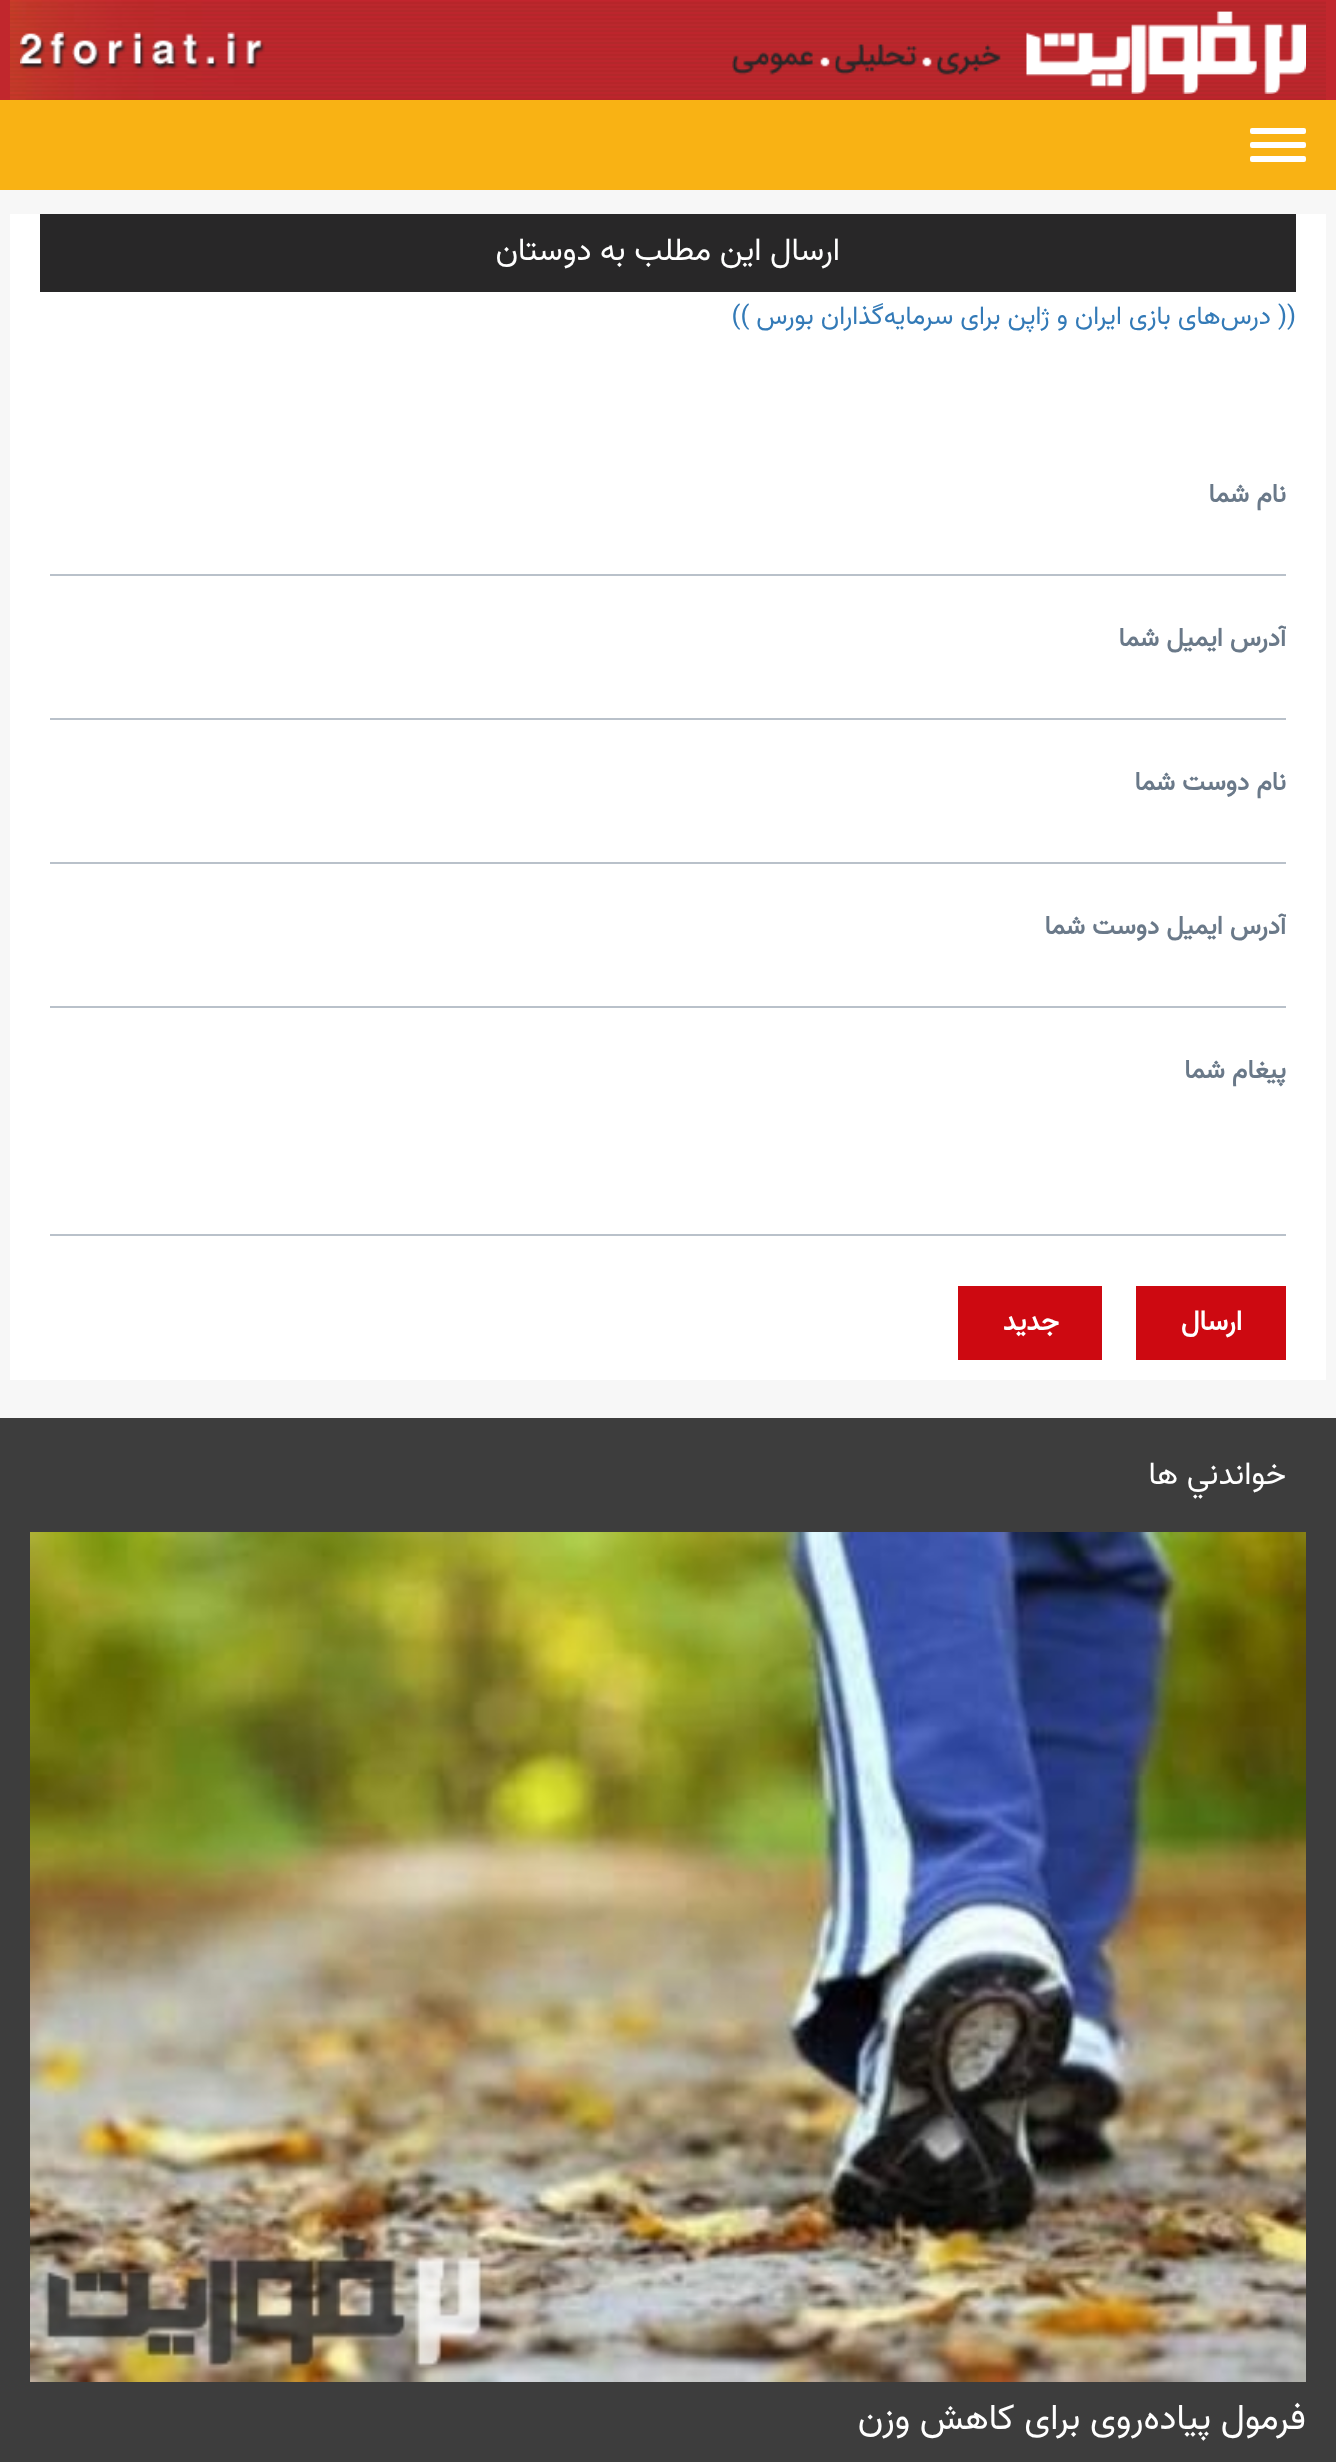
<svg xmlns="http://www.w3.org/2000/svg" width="1336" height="2462">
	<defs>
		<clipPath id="clip1"><rect x="50" y="606" width="1236" height="144" /></clipPath>
		<clipPath id="clip2"><rect x="50" y="894" width="1236" height="144" /></clipPath>
	</defs>
	<rect width="100%" height="100%" fill="#F7F7F7" />
	<rect x="0" y="0" width="1336" height="100" fill="#C1272D" />
	<image x="10" y="0" width="1316" height="100" href="assets/img1.png" />
	<image x="732" y="11" width="574" height="83" href="assets/img2.png" />
	<image x="20" y="32" width="245" height="38" href="assets/img3.png" />
	<rect x="0" y="100" width="1336" height="90" fill="#F9B214" />
	<rect x="1250" y="128" width="56" height="6" rx="2" fill="#FFFFFF" />
	<rect x="1250" y="142" width="56" height="6" rx="2" fill="#FFFFFF" />
	<rect x="1250" y="156" width="56" height="6" rx="2" fill="#FFFFFF" />
	<rect x="10" y="214" width="1316" height="1166" fill="#FFFFFF" />
	<rect x="40" y="214" width="1256" height="78" fill="#282728" />
	<text x="840" y="260" font-family="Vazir" font-size="32" direction="rtl" fill="#FFFFFF">ارسال اين مطلب به دوستان</text>
	<text x="1296" y="324" font-family="Vazir" font-size="26" direction="rtl" fill="#337AB7">(( درس‌های بازی ایران و ژاپن برای سرمایه‌گذاران بورس ))</text>
	<text x="1286" y="502" font-family="Vazir" font-size="26" font-weight="700" direction="rtl" fill="#6A7989">نام شما</text>
	<rect x="50" y="574" width="1236" height="2" fill="#B9C1CA" />
	<g clip-path="url(#clip1)">
		<text x="1286" y="646" font-family="Vazir" font-size="26" font-weight="700" direction="rtl" fill="#6A7989">آدرس ايميل شما</text>
	</g>
	<rect x="50" y="718" width="1236" height="2" fill="#B9C1CA" />
	<text x="1286" y="790" font-family="Vazir" font-size="26" font-weight="700" direction="rtl" fill="#6A7989">نام دوست شما</text>
	<rect x="50" y="862" width="1236" height="2" fill="#B9C1CA" />
	<g clip-path="url(#clip2)">
		<text x="1286" y="934" font-family="Vazir" font-size="26" font-weight="700" direction="rtl" fill="#6A7989">آدرس ايميل دوست شما</text>
	</g>
	<rect x="50" y="1006" width="1236" height="2" fill="#B9C1CA" />
	<text x="1286" y="1078" font-family="Vazir" font-size="26" font-weight="700" direction="rtl" fill="#6A7989">پيغام شما</text>
	<rect x="50" y="1234" width="1236" height="2" fill="#B9C1CA" />
	<rect x="1136" y="1286" width="150" height="74" fill="#CD0911" />
	<text x="1242" y="1330" font-family="Vazir" font-size="28" font-weight="700" direction="rtl" fill="#FFFFFF">ارسال</text>
	<rect x="958" y="1286" width="144" height="74" fill="#CD0911" />
	<text x="1059" y="1330" font-family="Vazir" font-size="28" font-weight="700" direction="rtl" fill="#FFFFFF">جديد</text>
	<rect x="0" y="1418" width="1336" height="1044" fill="#3D3D3D" />
	<text x="1286" y="1484" font-family="Vazir" font-size="32" direction="rtl" fill="#FFFFFF">خواندني ها</text>
	<image x="30" y="1532" width="1276" height="850" href="assets/img4.png" />
	<text x="1306" y="2429" font-family="Vazir" font-size="36" direction="rtl" fill="#FFFFFF">فرمول پیاده‌روی برای کاهش وزن</text>
</svg>
